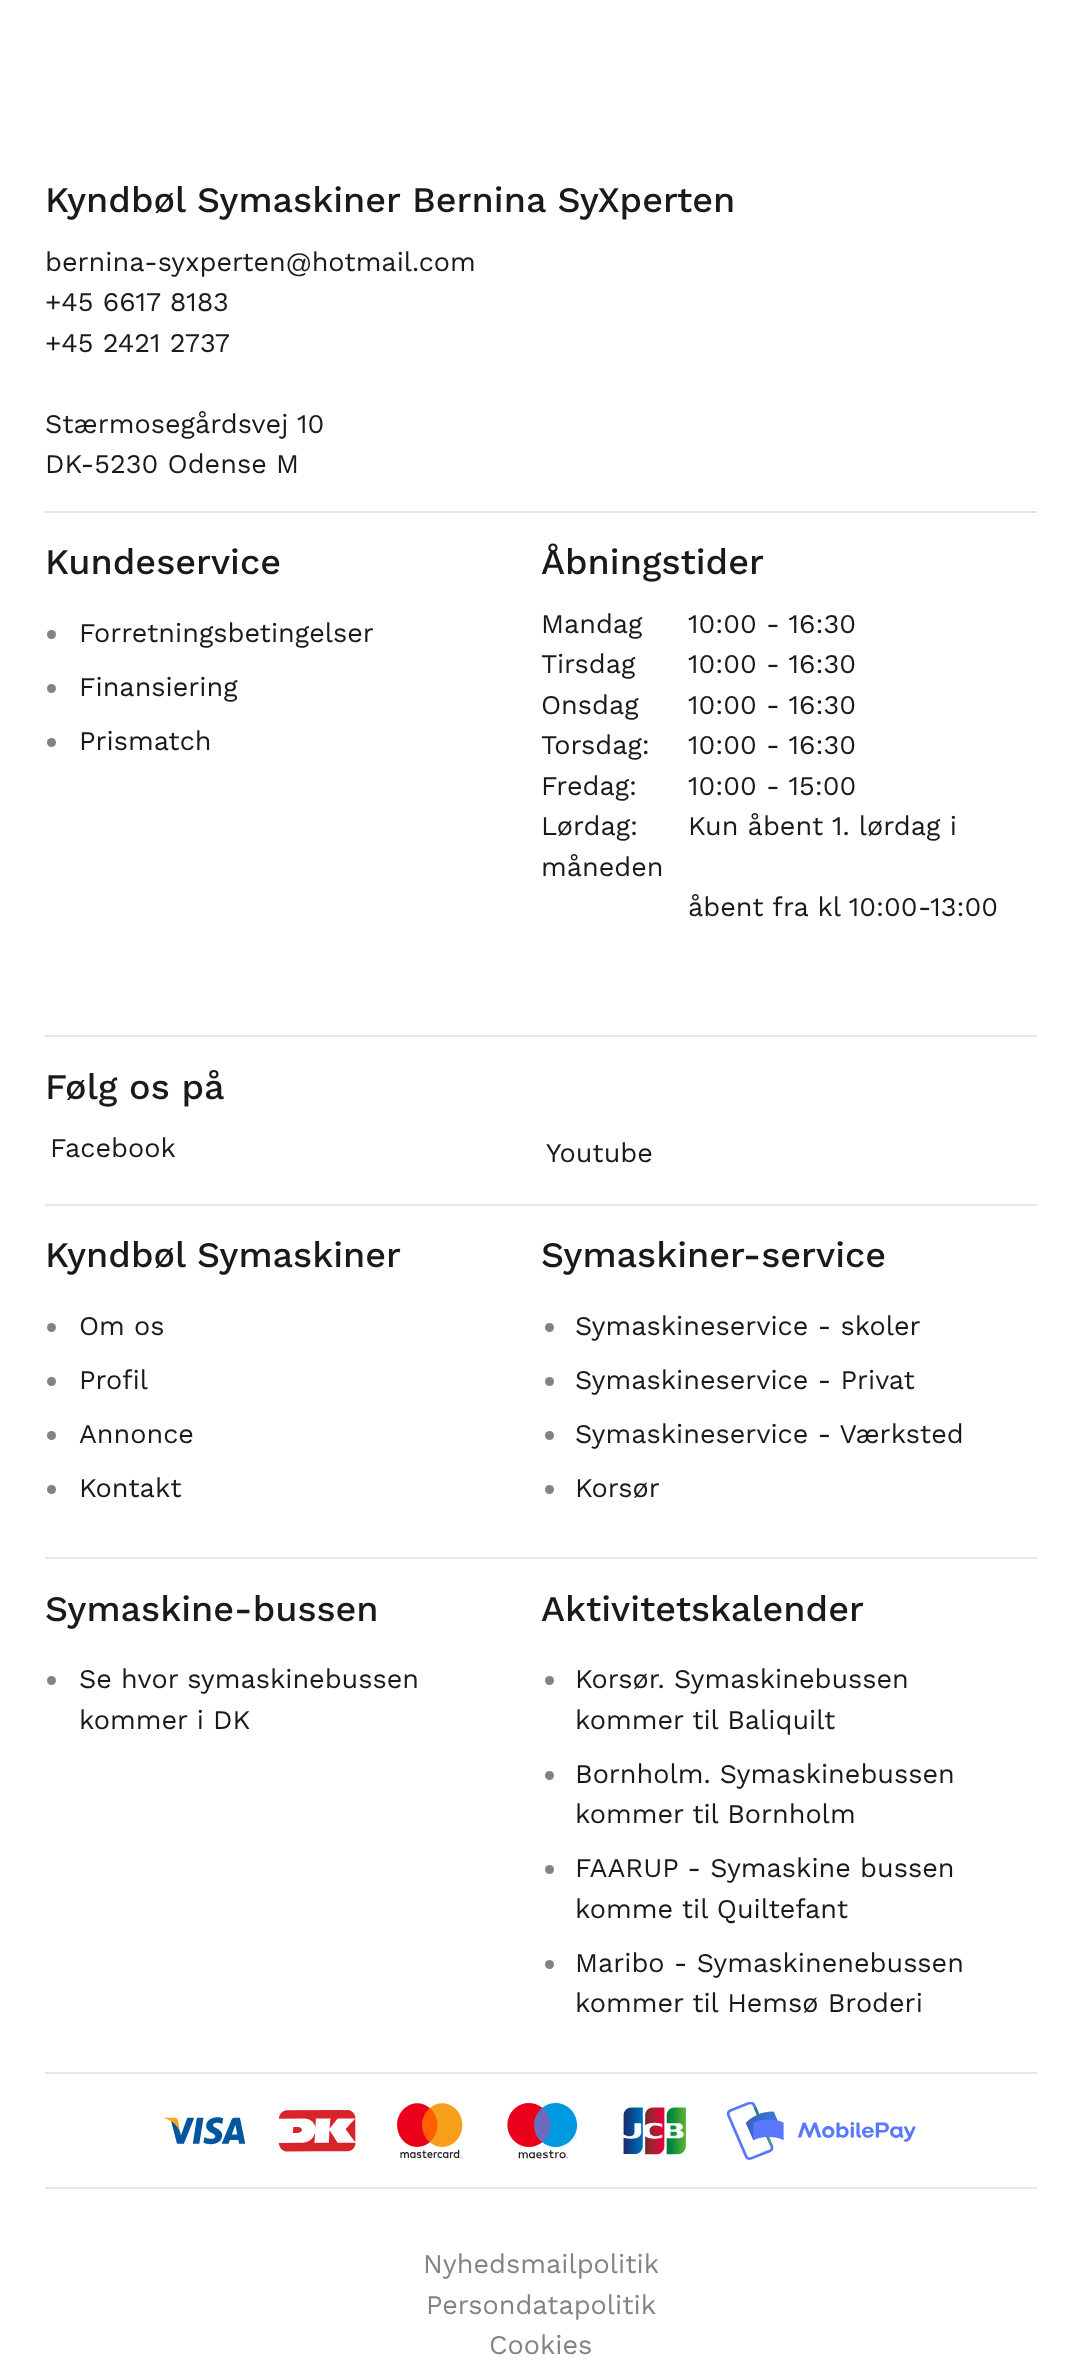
<svg xmlns="http://www.w3.org/2000/svg" width="1082" height="2379">
	<rect width="100%" height="100%" fill="#FFFFFF" />
	<rect x="45" y="1204" width="992" height="2" fill="#E2E8F0" />
	<rect x="45" y="511" width="992" height="2" fill="#E6E6E6" />
	<text x="45" y="212" font-family="Work Sans" font-size="36" font-weight="500" fill="#1A1A1A">Kyndbøl Symaskiner Bernina SyXperten</text>
	<g font-family="Work Sans" font-size="27" fill="#1A1A1A">
		<text x="45" y="271">bernina-syxperten@hotmail.com</text>
		<text x="45" y="311">+45 6617 8183</text>
		<text x="45" y="352">+45 2421 2737</text>
		<text x="45" y="433">Stærmosegårdsvej 10</text>
		<text x="45" y="473">DK-5230 Odense M</text>
	</g>
	<rect x="45" y="1035" width="992" height="2" fill="#E6E6E6" />
	<text x="45" y="574" font-family="Work Sans" font-size="36" font-weight="500" fill="#1A1A1A">Kundeservice</text>
	<circle cx="51.5" cy="634.5" r="4.5" fill="#838383" />
	<text x="79" y="642" font-family="Work Sans" font-size="27" fill="#1A1A1A">Forretningsbetingelser</text>
	<circle cx="51.5" cy="688.5" r="4.5" fill="#838383" />
	<text x="79" y="696" font-family="Work Sans" font-size="27" fill="#1A1A1A">Finansiering</text>
	<circle cx="51.5" cy="742.5" r="4.5" fill="#838383" />
	<text x="79" y="750" font-family="Work Sans" font-size="27" fill="#1A1A1A">Prismatch</text>
	<text x="541" y="574" font-family="Work Sans" font-size="36" font-weight="500" fill="#1A1A1A">Åbningstider</text>
	<g font-family="Work Sans" font-size="27" fill="#1A1A1A">
		<text x="541" y="633">Mandag</text>
		<text x="688" y="633">10:00 - 16:30</text>
		<text x="541" y="673">Tirsdag</text>
		<text x="688" y="673">10:00 - 16:30</text>
		<text x="541" y="714">Onsdag</text>
		<text x="688" y="714">10:00 - 16:30</text>
		<text x="541" y="754">Torsdag:</text>
		<text x="688" y="754">10:00 - 16:30</text>
		<text x="541" y="795">Fredag:</text>
		<text x="688" y="795">10:00 - 15:00</text>
		<text x="541" y="835">Lørdag:</text>
		<text x="688" y="835">Kun åbent 1. lørdag i</text>
		<text x="541" y="876">måneden</text>
		<text x="688" y="916">åbent fra kl 10:00-13:00</text>
	</g>
	<text x="45" y="1099" font-family="Work Sans" font-size="36" font-weight="500" fill="#1A1A1A">Følg os på</text>
	<g font-family="Work Sans" font-size="27" fill="#1A1A1A">
		<text x="50" y="1157">Facebook</text>
		<text x="546" y="1162">Youtube</text>
	</g>
	<rect x="45" y="2072" width="992" height="2" fill="#E2E8F0" />
	<rect x="45" y="1557" width="992" height="2" fill="#E6E6E6" />
	<text x="45" y="1267" font-family="Work Sans" font-size="36" font-weight="500" fill="#1A1A1A">Kyndbøl Symaskiner</text>
	<circle cx="51.5" cy="1327.5" r="4.5" fill="#838383" />
	<text x="79" y="1335" font-family="Work Sans" font-size="27" fill="#1A1A1A">Om os</text>
	<circle cx="51.5" cy="1381.5" r="4.5" fill="#838383" />
	<text x="79" y="1389" font-family="Work Sans" font-size="27" fill="#1A1A1A">Profil</text>
	<circle cx="51.5" cy="1435.5" r="4.5" fill="#838383" />
	<text x="79" y="1443" font-family="Work Sans" font-size="27" fill="#1A1A1A">Annonce</text>
	<circle cx="51.5" cy="1489.5" r="4.5" fill="#838383" />
	<text x="79" y="1497" font-family="Work Sans" font-size="27" fill="#1A1A1A">Kontakt</text>
	<text x="541" y="1267" font-family="Work Sans" font-size="36" font-weight="500" fill="#1A1A1A">Symaskiner-service</text>
	<circle cx="549.5" cy="1327.5" r="4.5" fill="#838383" />
	<text x="575" y="1335" font-family="Work Sans" font-size="27" fill="#1A1A1A">Symaskineservice - skoler</text>
	<circle cx="549.5" cy="1381.5" r="4.5" fill="#838383" />
	<text x="575" y="1389" font-family="Work Sans" font-size="27" fill="#1A1A1A">Symaskineservice - Privat</text>
	<circle cx="549.5" cy="1435.5" r="4.5" fill="#838383" />
	<text x="575" y="1443" font-family="Work Sans" font-size="27" fill="#1A1A1A">Symaskineservice - Værksted</text>
	<circle cx="549.5" cy="1489.5" r="4.5" fill="#838383" />
	<text x="575" y="1497" font-family="Work Sans" font-size="27" fill="#1A1A1A">Korsør</text>
	<text x="45" y="1621" font-family="Work Sans" font-size="36" font-weight="500" fill="#1A1A1A">Symaskine-bussen</text>
	<circle cx="51.5" cy="1680.5" r="4.5" fill="#838383" />
	<g font-family="Work Sans" font-size="27" fill="#1A1A1A">
		<text x="79" y="1688">Se hvor symaskinebussen</text>
		<text x="79" y="1729">kommer i DK</text>
	</g>
	<text x="541" y="1621" font-family="Work Sans" font-size="36" font-weight="500" fill="#1A1A1A">Aktivitetskalender</text>
	<circle cx="549.5" cy="1680.5" r="4.5" fill="#838383" />
	<g font-family="Work Sans" font-size="27" fill="#1A1A1A">
		<text x="575" y="1688">Korsør. Symaskinebussen</text>
		<text x="575" y="1729">kommer til Baliquilt</text>
	</g>
	<circle cx="549.5" cy="1775.5" r="4.5" fill="#838383" />
	<g font-family="Work Sans" font-size="27" fill="#1A1A1A">
		<text x="575" y="1783">Bornholm. Symaskinebussen</text>
		<text x="575" y="1823">kommer til Bornholm</text>
	</g>
	<circle cx="549.5" cy="1869.5" r="4.5" fill="#838383" />
	<g font-family="Work Sans" font-size="27" fill="#1A1A1A">
		<text x="575" y="1877">FAARUP - Symaskine bussen</text>
		<text x="575" y="1918">komme til Quiltefant</text>
	</g>
	<circle cx="549.5" cy="1964.5" r="4.5" fill="#838383" />
	<g font-family="Work Sans" font-size="27" fill="#1A1A1A">
		<text x="575" y="1972">Maribo - Symaskinenebussen</text>
		<text x="575" y="2012">kommer til Hemsø Broderi</text>
	</g>
	<image x="164" y="2102" width="752" height="58" href="assets/img1.png" />
	<rect x="45" y="2187" width="992" height="2" fill="#E2E8F0" />
	<g font-family="Work Sans" font-size="27" fill="#838383">
		<text x="423" y="2273">Nyhedsmailpolitik</text>
		<text x="426" y="2314">Persondatapolitik</text>
		<text x="489" y="2354">Cookies</text>
	</g>
</svg>
